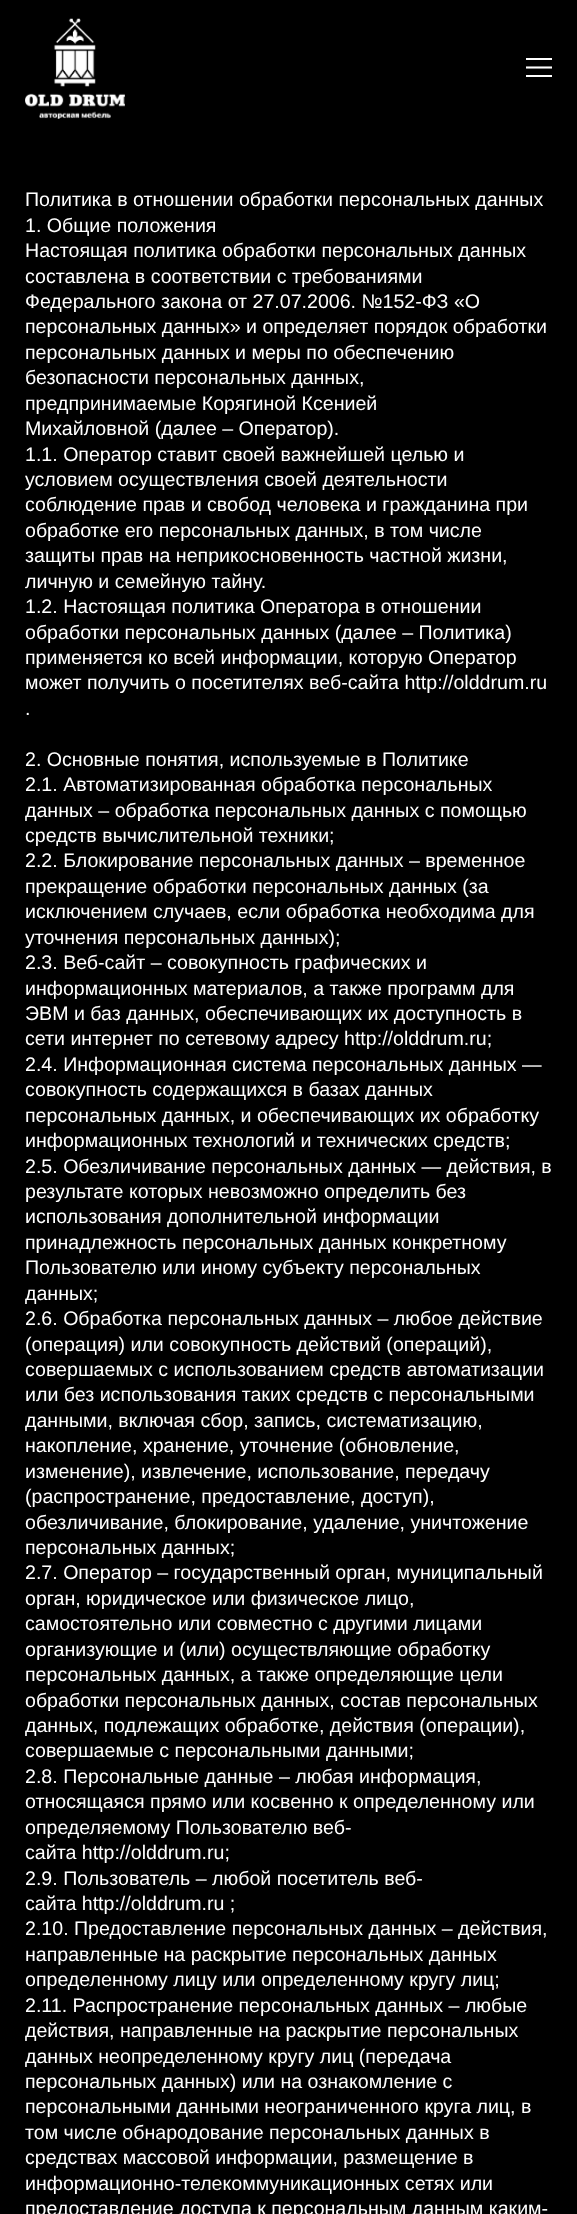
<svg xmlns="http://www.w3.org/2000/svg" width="577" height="2214">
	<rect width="100%" height="100%" fill="#000000" />
	<image x="25" y="18" width="100" height="101" href="assets/img1.png" />
	<rect x="526" y="58" width="26" height="2" fill="#FFFFFF" />
	<path d="M526 67.5H552" fill="none" stroke="#FFFFFF" stroke-width="2.1" />
	<rect x="526" y="75" width="26" height="2" fill="#FFFFFF" />
	<g font-family="Liberation Sans" font-size="19.6" fill="#FFFFFF">
		<text x="25" y="206">Политика в отношении обработки персональных данных</text>
		<text x="25" y="232">1. Общие положения</text>
		<text x="25" y="257">Настоящая политика обработки персональных данных</text>
		<text x="25" y="283">составлена в соответствии с требованиями</text>
		<text x="25" y="308">Федерального закона от 27.07.2006. №152-ФЗ «О</text>
		<text x="25" y="333">персональных данных» и определяет порядок обработки</text>
		<text x="25" y="359">персональных данных и меры по обеспечению</text>
		<text x="25" y="384">безопасности персональных данных,</text>
		<text x="25" y="410">предпринимаемые Корягиной Ксенией</text>
		<text x="25" y="435">Михайловной (далее – Оператор).</text>
		<text x="25" y="461">1.1. Оператор ставит своей важнейшей целью и</text>
		<text x="25" y="486">условием осуществления своей деятельности</text>
		<text x="25" y="511">соблюдение прав и свобод человека и гражданина при</text>
		<text x="25" y="537">обработке его персональных данных, в том числе</text>
		<text x="25" y="562">защиты прав на неприкосновенность частной жизни,</text>
		<text x="25" y="588">личную и семейную тайну.</text>
		<text x="25" y="613">1.2. Настоящая политика Оператора в отношении</text>
		<text x="25" y="639">обработки персональных данных (далее – Политика)</text>
		<text x="25" y="664">применяется ко всей информации, которую Оператор</text>
		<text x="25" y="689">может получить о посетителях веб-сайта http://olddrum.ru</text>
		<text x="25" y="715">.</text>
		<text x="25" y="766">2. Основные понятия, используемые в Политике</text>
		<text x="25" y="791">2.1. Автоматизированная обработка персональных</text>
		<text x="25" y="817">данных – обработка персональных данных с помощью</text>
		<text x="25" y="842">средств вычислительной техники;</text>
		<text x="25" y="867">2.2. Блокирование персональных данных – временное</text>
		<text x="25" y="893">прекращение обработки персональных данных (за</text>
		<text x="25" y="918">исключением случаев, если обработка необходима для</text>
		<text x="25" y="944">уточнения персональных данных);</text>
		<text x="25" y="969">2.3. Веб-сайт – совокупность графических и</text>
		<text x="25" y="995">информационных материалов, а также программ для</text>
		<text x="25" y="1020">ЭВМ и баз данных, обеспечивающих их доступность в</text>
		<text x="25" y="1045">сети интернет по сетевому адресу http://olddrum.ru;</text>
		<text x="25" y="1071">2.4. Информационная система персональных данных —</text>
		<text x="25" y="1096">совокупность содержащихся в базах данных</text>
		<text x="25" y="1122">персональных данных, и обеспечивающих их обработку</text>
		<text x="25" y="1147">информационных технологий и технических средств;</text>
		<text x="25" y="1173">2.5. Обезличивание персональных данных — действия, в</text>
		<text x="25" y="1198">результате которых невозможно определить без</text>
		<text x="25" y="1223">использования дополнительной информации</text>
		<text x="25" y="1249">принадлежность персональных данных конкретному</text>
		<text x="25" y="1274">Пользователю или иному субъекту персональных</text>
		<text x="25" y="1300">данных;</text>
		<text x="25" y="1325">2.6. Обработка персональных данных – любое действие</text>
		<text x="25" y="1351">(операция) или совокупность действий (операций),</text>
		<text x="25" y="1376">совершаемых с использованием средств автоматизации</text>
		<text x="25" y="1401">или без использования таких средств с персональными</text>
		<text x="25" y="1427">данными, включая сбор, запись, систематизацию,</text>
		<text x="25" y="1452">накопление, хранение, уточнение (обновление,</text>
		<text x="25" y="1478">изменение), извлечение, использование, передачу</text>
		<text x="25" y="1503">(распространение, предоставление, доступ),</text>
		<text x="25" y="1529">обезличивание, блокирование, удаление, уничтожение</text>
		<text x="25" y="1554">персональных данных;</text>
		<text x="25" y="1579">2.7. Оператор – государственный орган, муниципальный</text>
		<text x="25" y="1605">орган, юридическое или физическое лицо,</text>
		<text x="25" y="1630">самостоятельно или совместно с другими лицами</text>
		<text x="25" y="1656">организующие и (или) осуществляющие обработку</text>
		<text x="25" y="1681">персональных данных, а также определяющие цели</text>
		<text x="25" y="1707">обработки персональных данных, состав персональных</text>
		<text x="25" y="1732">данных, подлежащих обработке, действия (операции),</text>
		<text x="25" y="1757">совершаемые с персональными данными;</text>
		<text x="25" y="1783">2.8. Персональные данные – любая информация,</text>
		<text x="25" y="1808">относящаяся прямо или косвенно к определенному или</text>
		<text x="25" y="1834">определяемому Пользователю веб-</text>
		<text x="25" y="1859">сайта http://olddrum.ru;</text>
		<text x="25" y="1885">2.9. Пользователь – любой посетитель веб-</text>
		<text x="25" y="1910">сайта http://olddrum.ru ;</text>
		<text x="25" y="1935">2.10. Предоставление персональных данных – действия,</text>
		<text x="25" y="1961">направленные на раскрытие персональных данных</text>
		<text x="25" y="1986">определенному лицу или определенному кругу лиц;</text>
		<text x="25" y="2012">2.11. Распространение персональных данных – любые</text>
		<text x="25" y="2037">действия, направленные на раскрытие персональных</text>
		<text x="25" y="2063">данных неопределенному кругу лиц (передача</text>
		<text x="25" y="2088">персональных данных) или на ознакомление с</text>
		<text x="25" y="2113">персональными данными неограниченного круга лиц, в</text>
		<text x="25" y="2139">том числе обнародование персональных данных в</text>
		<text x="25" y="2164">средствах массовой информации, размещение в</text>
		<text x="25" y="2190">информационно-телекоммуникационных сетях или</text>
		<text x="25" y="2215">предоставление доступа к персональным данным каким-</text>
	</g>
</svg>
